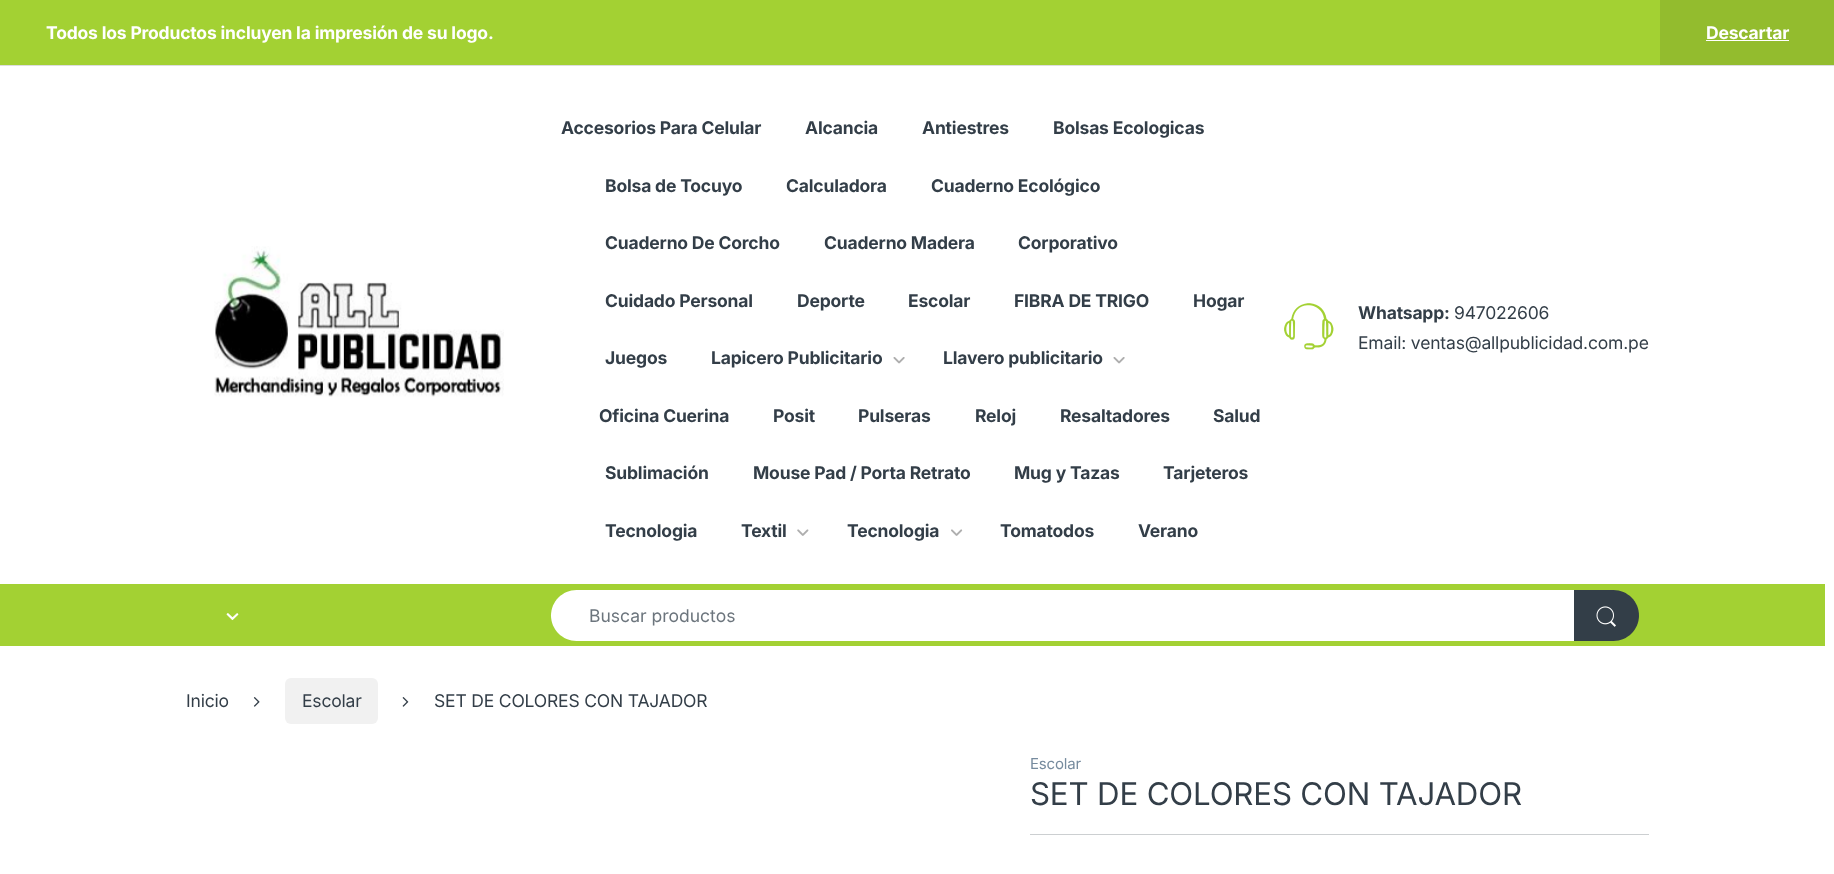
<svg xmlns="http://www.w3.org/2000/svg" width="1834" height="874">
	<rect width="100%" height="100%" fill="#FFFFFF" />
	<rect x="0" y="0" width="1660" height="65" fill="#A3D133" />
	<text x="46" y="39" font-family="Inter" font-size="17.5" font-weight="700" letter-spacing="-0.18" fill="#FFFFFF">Todos los Productos incluyen la impresión de su logo.</text>
	<rect x="1660" y="0" width="174" height="65" fill="#93BC2E" />
	<text x="1706" y="39" font-family="Inter" font-size="17.5" font-weight="700" letter-spacing="-0.18" fill="#FFFFFF">Descartar</text>
	<rect x="1706" y="40" width="83" height="1" fill="#FFFFFF" />
	<rect x="0" y="65" width="1834" height="1" fill="#DDDDDD" />
	<image x="214" y="246" width="290" height="151" href="assets/img1.png" />
	<g font-family="Inter" font-size="17.5" font-weight="700" letter-spacing="-0.18" fill="#333E48">
		<text x="561" y="134">Accesorios Para Celular</text>
		<text x="805" y="134">Alcancia</text>
		<text x="922" y="134">Antiestres</text>
		<text x="1053" y="134">Bolsas Ecologicas</text>
		<text x="605" y="192">Bolsa de Tocuyo</text>
		<text x="786" y="192">Calculadora</text>
		<text x="931" y="192">Cuaderno Ecológico</text>
		<text x="605" y="249">Cuaderno De Corcho</text>
		<text x="824" y="249">Cuaderno Madera</text>
		<text x="1018" y="249">Corporativo</text>
		<text x="605" y="307">Cuidado Personal</text>
		<text x="797" y="307">Deporte</text>
		<text x="908" y="307">Escolar</text>
		<text x="1014" y="307">FIBRA DE TRIGO</text>
		<text x="1193" y="307">Hogar</text>
		<text x="605" y="364">Juegos</text>
		<text x="711" y="364">Lapicero Publicitario</text>
	</g>
	<image x="893" y="357" width="12" height="7" href="assets/img2.png" />
	<text x="943" y="364" font-family="Inter" font-size="17.5" font-weight="700" letter-spacing="-0.18" fill="#333E48">Llavero publicitario</text>
	<image x="1113" y="357" width="12" height="7" href="assets/img2.png" />
	<g font-family="Inter" font-size="17.5" font-weight="700" letter-spacing="-0.18" fill="#333E48">
		<text x="599" y="422">Oficina Cuerina</text>
		<text x="773" y="422">Posit</text>
		<text x="858" y="422">Pulseras</text>
		<text x="975" y="422">Reloj</text>
		<text x="1060" y="422">Resaltadores</text>
		<text x="1213" y="422">Salud</text>
		<text x="605" y="479">Sublimación</text>
		<text x="753" y="479">Mouse Pad / Porta Retrato</text>
		<text x="1014" y="479">Mug y Tazas</text>
		<text x="1163" y="479">Tarjeteros</text>
		<text x="605" y="537">Tecnologia</text>
		<text x="741" y="537">Textil</text>
	</g>
	<image x="797" y="529" width="12" height="7" href="assets/img3.png" />
	<text x="847" y="537" font-family="Inter" font-size="17.5" font-weight="700" letter-spacing="-0.18" fill="#333E48">Tecnologia</text>
	<image x="951" y="529" width="12" height="7" href="assets/img4.png" />
	<g font-family="Inter" font-size="17.5" font-weight="700" letter-spacing="-0.18" fill="#333E48">
		<text x="1000" y="537">Tomatodos</text>
		<text x="1138" y="537">Verano</text>
	</g>
	<image x="1284" y="303" width="50" height="47" href="assets/img5.png" />
	<text x="1358" y="319" font-family="Inter" font-size="17.5" font-weight="700" letter-spacing="-0.18" fill="#333E48">Whatsapp:</text>
	<g font-family="Inter" font-size="17.5" letter-spacing="-0.18" fill="#333E48">
		<text x="1454" y="319">947022606</text>
		<text x="1358" y="349">Email: ventas@allpublicidad.com.pe</text>
	</g>
	<rect x="0" y="584" width="1825" height="62" fill="#A3D133" />
	<image x="226" y="613" width="13" height="8" href="assets/img6.png" />
	<path d="M576.5 590H1575V641H576.5C562.5 641 551 629.5 551 615.5C551 601.5 562.5 590 576.5 590Z" fill="#FFFFFF" />
	<text x="589" y="622" font-family="Inter" font-size="17.5" fill="#6C757D">Buscar productos</text>
	<path d="M1574 590H1613.5C1627.5 590 1639 601.5 1639 615.5C1639 629.5 1627.5 641 1613.5 641H1574Z" fill="#333E48" />
	<image x="1596" y="606" width="20" height="21" href="assets/img7.png" />
	<text x="186" y="707" font-family="Inter" font-size="17.5" letter-spacing="-0.18" fill="#333E48">Inicio</text>
	<image x="253" y="697" width="7" height="10" href="assets/img8.png" />
	<rect x="285" y="678" width="93" height="46" rx="6" fill="#F1F1F1" />
	<text x="302" y="707" font-family="Inter" font-size="17.5" letter-spacing="-0.18" fill="#333E48">Escolar</text>
	<image x="402" y="697" width="7" height="10" href="assets/img9.png" />
	<text x="434" y="707" font-family="Inter" font-size="17.5" letter-spacing="-0.18" fill="#333E48">SET DE COLORES CON TAJADOR</text>
	<text x="1030" y="769" font-family="Inter" font-size="15" letter-spacing="-0.18" fill="#768B9E">Escolar</text>
	<text x="1030" y="805" font-family="Inter" font-size="31.25" letter-spacing="-0.18" fill="#333E48">SET DE COLORES CON TAJADOR</text>
	<rect x="1030" y="834" width="619" height="1" fill="#CCCFD1" />
</svg>
